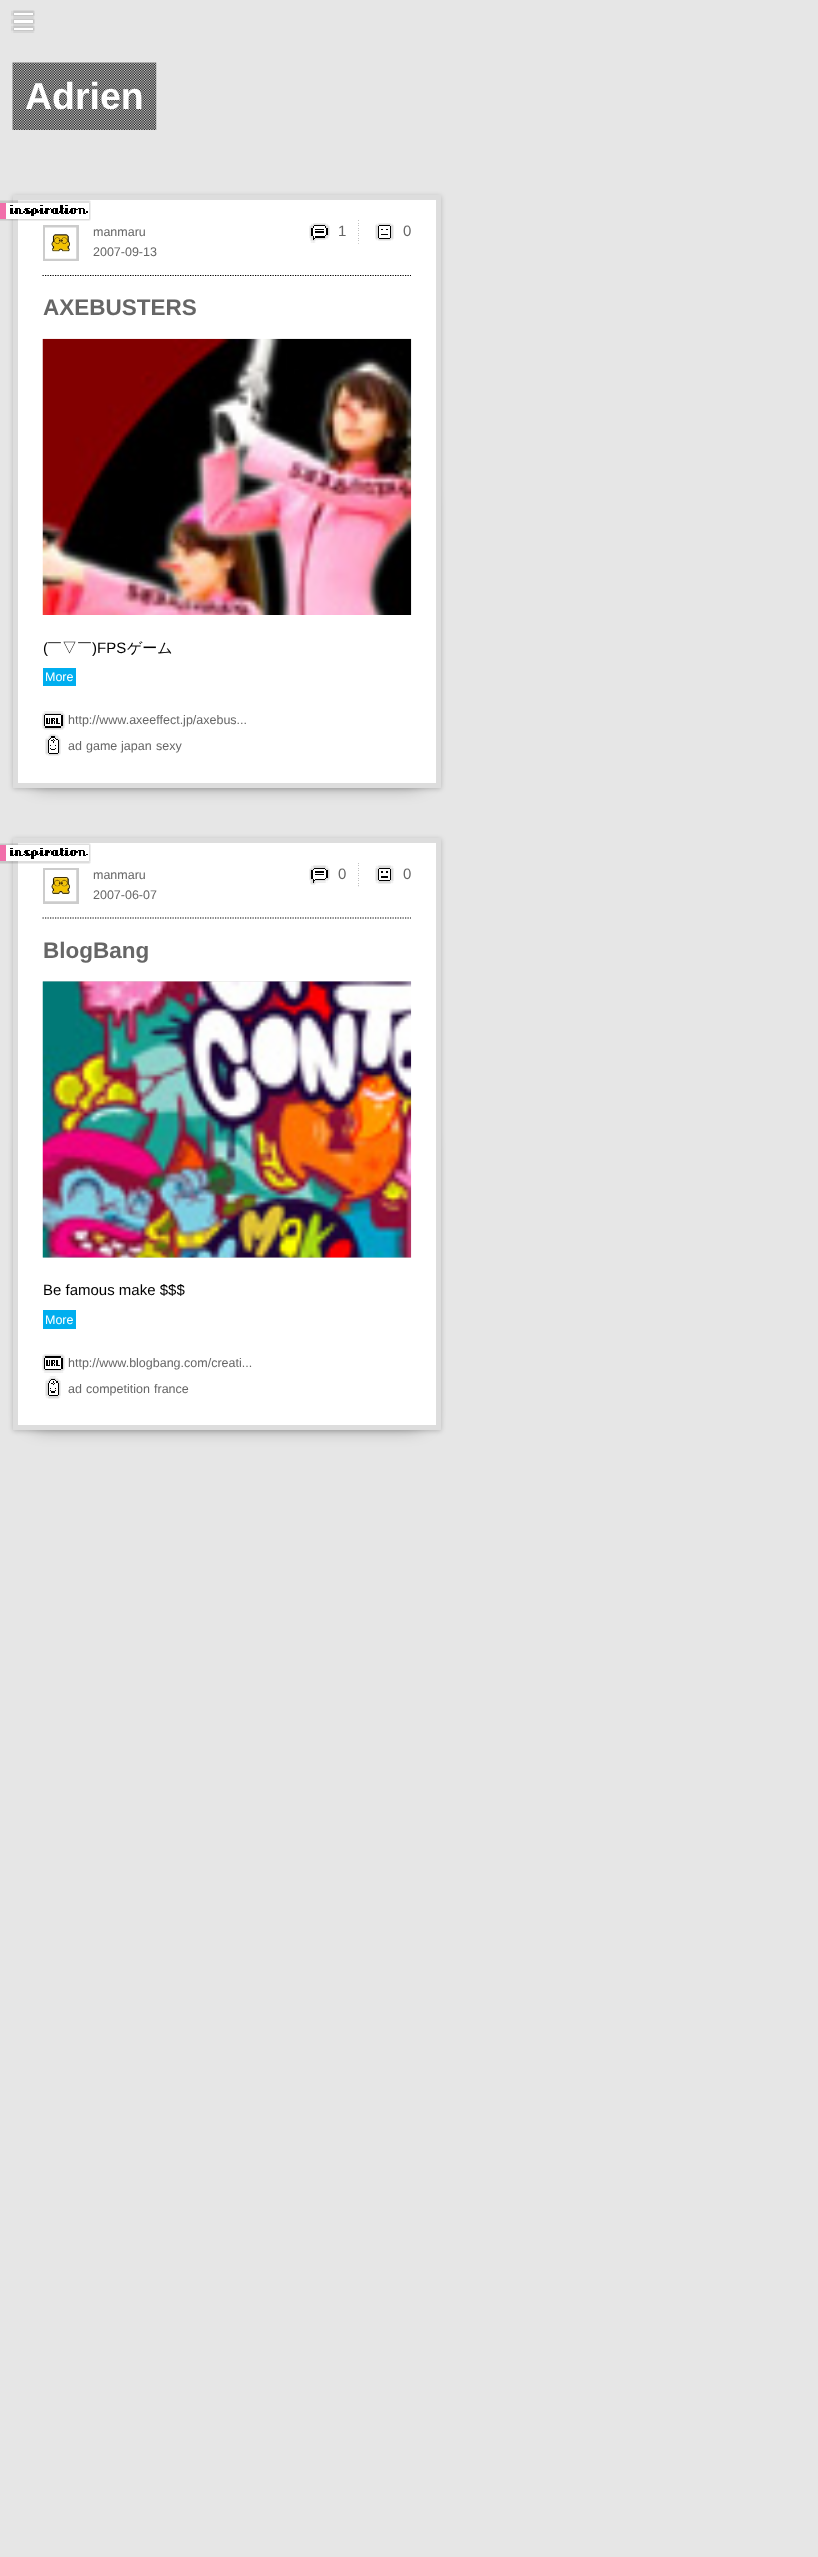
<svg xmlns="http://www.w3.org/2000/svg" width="818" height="2557">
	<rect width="100%" height="100%" fill="#E6E6E6" />
	<image x="11" y="10" width="24" height="23" href="assets/img1.png" />
	<image x="12" y="62" width="145" height="68" href="assets/img2.png" />
	<text x="25" y="109" font-family="Liberation Sans" font-size="37.5" font-weight="700" fill="#FFFFFF">Adrien</text>
	<rect x="13" y="196" width="428" height="593" fill="#000000" fill-opacity="0.2" filter="blur(2.5px)" />
	<rect x="30" y="491" width="394" height="292" rx="13" fill="#000000" fill-opacity="0.5" filter="blur(9.5px)" />
	<rect x="15.5" y="197.5" width="423" height="588" fill="#FFFFFF" stroke="#DDDDDD" stroke-width="5" />
	<image x="0" y="200" width="91" height="21" href="assets/img3.png" />
	<text x="93" y="236" font-family="Liberation Sans" font-size="12.5" fill="#666666">manmaru</text>
	<image x="309" y="223" width="21" height="20" href="assets/img4.png" />
	<text x="338" y="236" font-family="Liberation Sans" font-size="15" fill="#666666">1</text>
	<image x="358" y="220" width="1" height="24" href="assets/img5.png" />
	<image x="375" y="223" width="19" height="18" href="assets/img6.png" />
	<text x="403" y="236" font-family="Liberation Sans" font-size="15" fill="#666666">0</text>
	<text x="93" y="256" font-family="Liberation Sans" font-size="12.5" fill="#666666">2007-09-13</text>
	<rect x="44.5" y="226.5" width="33" height="33" fill="none" stroke="#CCCCCC" stroke-width="3" />
	<image x="45" y="227" width="32" height="32" href="assets/img7.png" />
	<path d="M42.5 275.5H411" fill="none" stroke="#000000" stroke-width="1.2" stroke-dasharray="1.25 1.25" />
	<text x="43" y="315" font-family="Liberation Sans" font-size="22.5" font-weight="700" fill="#666666">AXEBUSTERS</text>
	<image x="42" y="338" width="370" height="277" href="assets/img8.png" />
	<text x="43" y="653" font-family="Liberation Sans" font-size="15" fill="#000000">(</text>
	<text x="47" y="653" font-family="WenQuanYi Zen Hei" font-size="15" font-weight="500" fill="#000000">￣▽￣</text>
	<text x="92" y="653" font-family="Liberation Sans" font-size="15" fill="#000000">)FPS</text>
	<text x="127" y="653" font-family="WenQuanYi Zen Hei" font-size="15" font-weight="500" fill="#000000">ゲーム</text>
	<rect x="43" y="668" width="33" height="18" fill="#00AEEF" />
	<text x="45" y="681" font-family="Liberation Sans" font-size="12.5" fill="#FFFFFF">More</text>
	<image x="42" y="711" width="23" height="19" href="assets/img9.png" />
	<text x="68" y="724" font-family="Liberation Sans" font-size="12.5" fill="#666666">http://www.axeeffect.jp/axebus...</text>
	<image x="45" y="734" width="16" height="22" href="assets/img10.png" />
	<g font-family="Liberation Sans" font-size="12.5" fill="#666666">
		<text x="68" y="750">ad</text>
		<text x="86" y="750">game</text>
		<text x="121" y="750">japan</text>
		<text x="156" y="750">sexy</text>
	</g>
	<rect x="13" y="839" width="428" height="592" fill="#000000" fill-opacity="0.2" filter="blur(2.5px)" />
	<rect x="30" y="1134" width="394" height="291" rx="13" fill="#000000" fill-opacity="0.5" filter="blur(9.5px)" />
	<rect x="15.5" y="840.5" width="423" height="587" fill="#FFFFFF" stroke="#DDDDDD" stroke-width="5" />
	<image x="0" y="843" width="91" height="21" href="assets/img11.png" />
	<text x="93" y="879" font-family="Liberation Sans" font-size="12.5" fill="#666666">manmaru</text>
	<image x="309" y="865" width="21" height="20" href="assets/img12.png" />
	<text x="338" y="879" font-family="Liberation Sans" font-size="15" fill="#666666">0</text>
	<image x="358" y="863" width="1" height="24" href="assets/img13.png" />
	<image x="375" y="865" width="19" height="19" href="assets/img14.png" />
	<text x="403" y="879" font-family="Liberation Sans" font-size="15" fill="#666666">0</text>
	<text x="93" y="899" font-family="Liberation Sans" font-size="12.5" fill="#666666">2007-06-07</text>
	<rect x="44.5" y="869.5" width="33" height="33" fill="none" stroke="#CCCCCC" stroke-width="3" />
	<image x="45" y="870" width="32" height="32" href="assets/img15.png" />
	<path d="M42.5 918H411" fill="none" stroke="#000000" stroke-width="1.2" stroke-dasharray="1.25 1.25" />
	<text x="43" y="958" font-family="Liberation Sans" font-size="22.5" font-weight="700" fill="#666666">BlogBang</text>
	<rect x="43" y="981" width="368" height="277" fill="#DDDDDD" />
	<image x="42" y="981" width="370" height="277" href="assets/img16.png" />
	<text x="43" y="1295" font-family="Liberation Sans" font-size="15" fill="#000000">Be famous make $$$</text>
	<rect x="43" y="1310" width="33" height="19" fill="#00AEEF" />
	<text x="45" y="1324" font-family="Liberation Sans" font-size="12.5" fill="#FFFFFF">More</text>
	<image x="42" y="1354" width="23" height="19" href="assets/img17.png" />
	<text x="68" y="1367" font-family="Liberation Sans" font-size="12.5" fill="#666666">http://www.blogbang.com/creati...</text>
	<image x="45" y="1376" width="16" height="23" href="assets/img18.png" />
	<g font-family="Liberation Sans" font-size="12.5" fill="#666666">
		<text x="68" y="1393">ad</text>
		<text x="86" y="1393">competition</text>
		<text x="154" y="1393">france</text>
	</g>
</svg>
